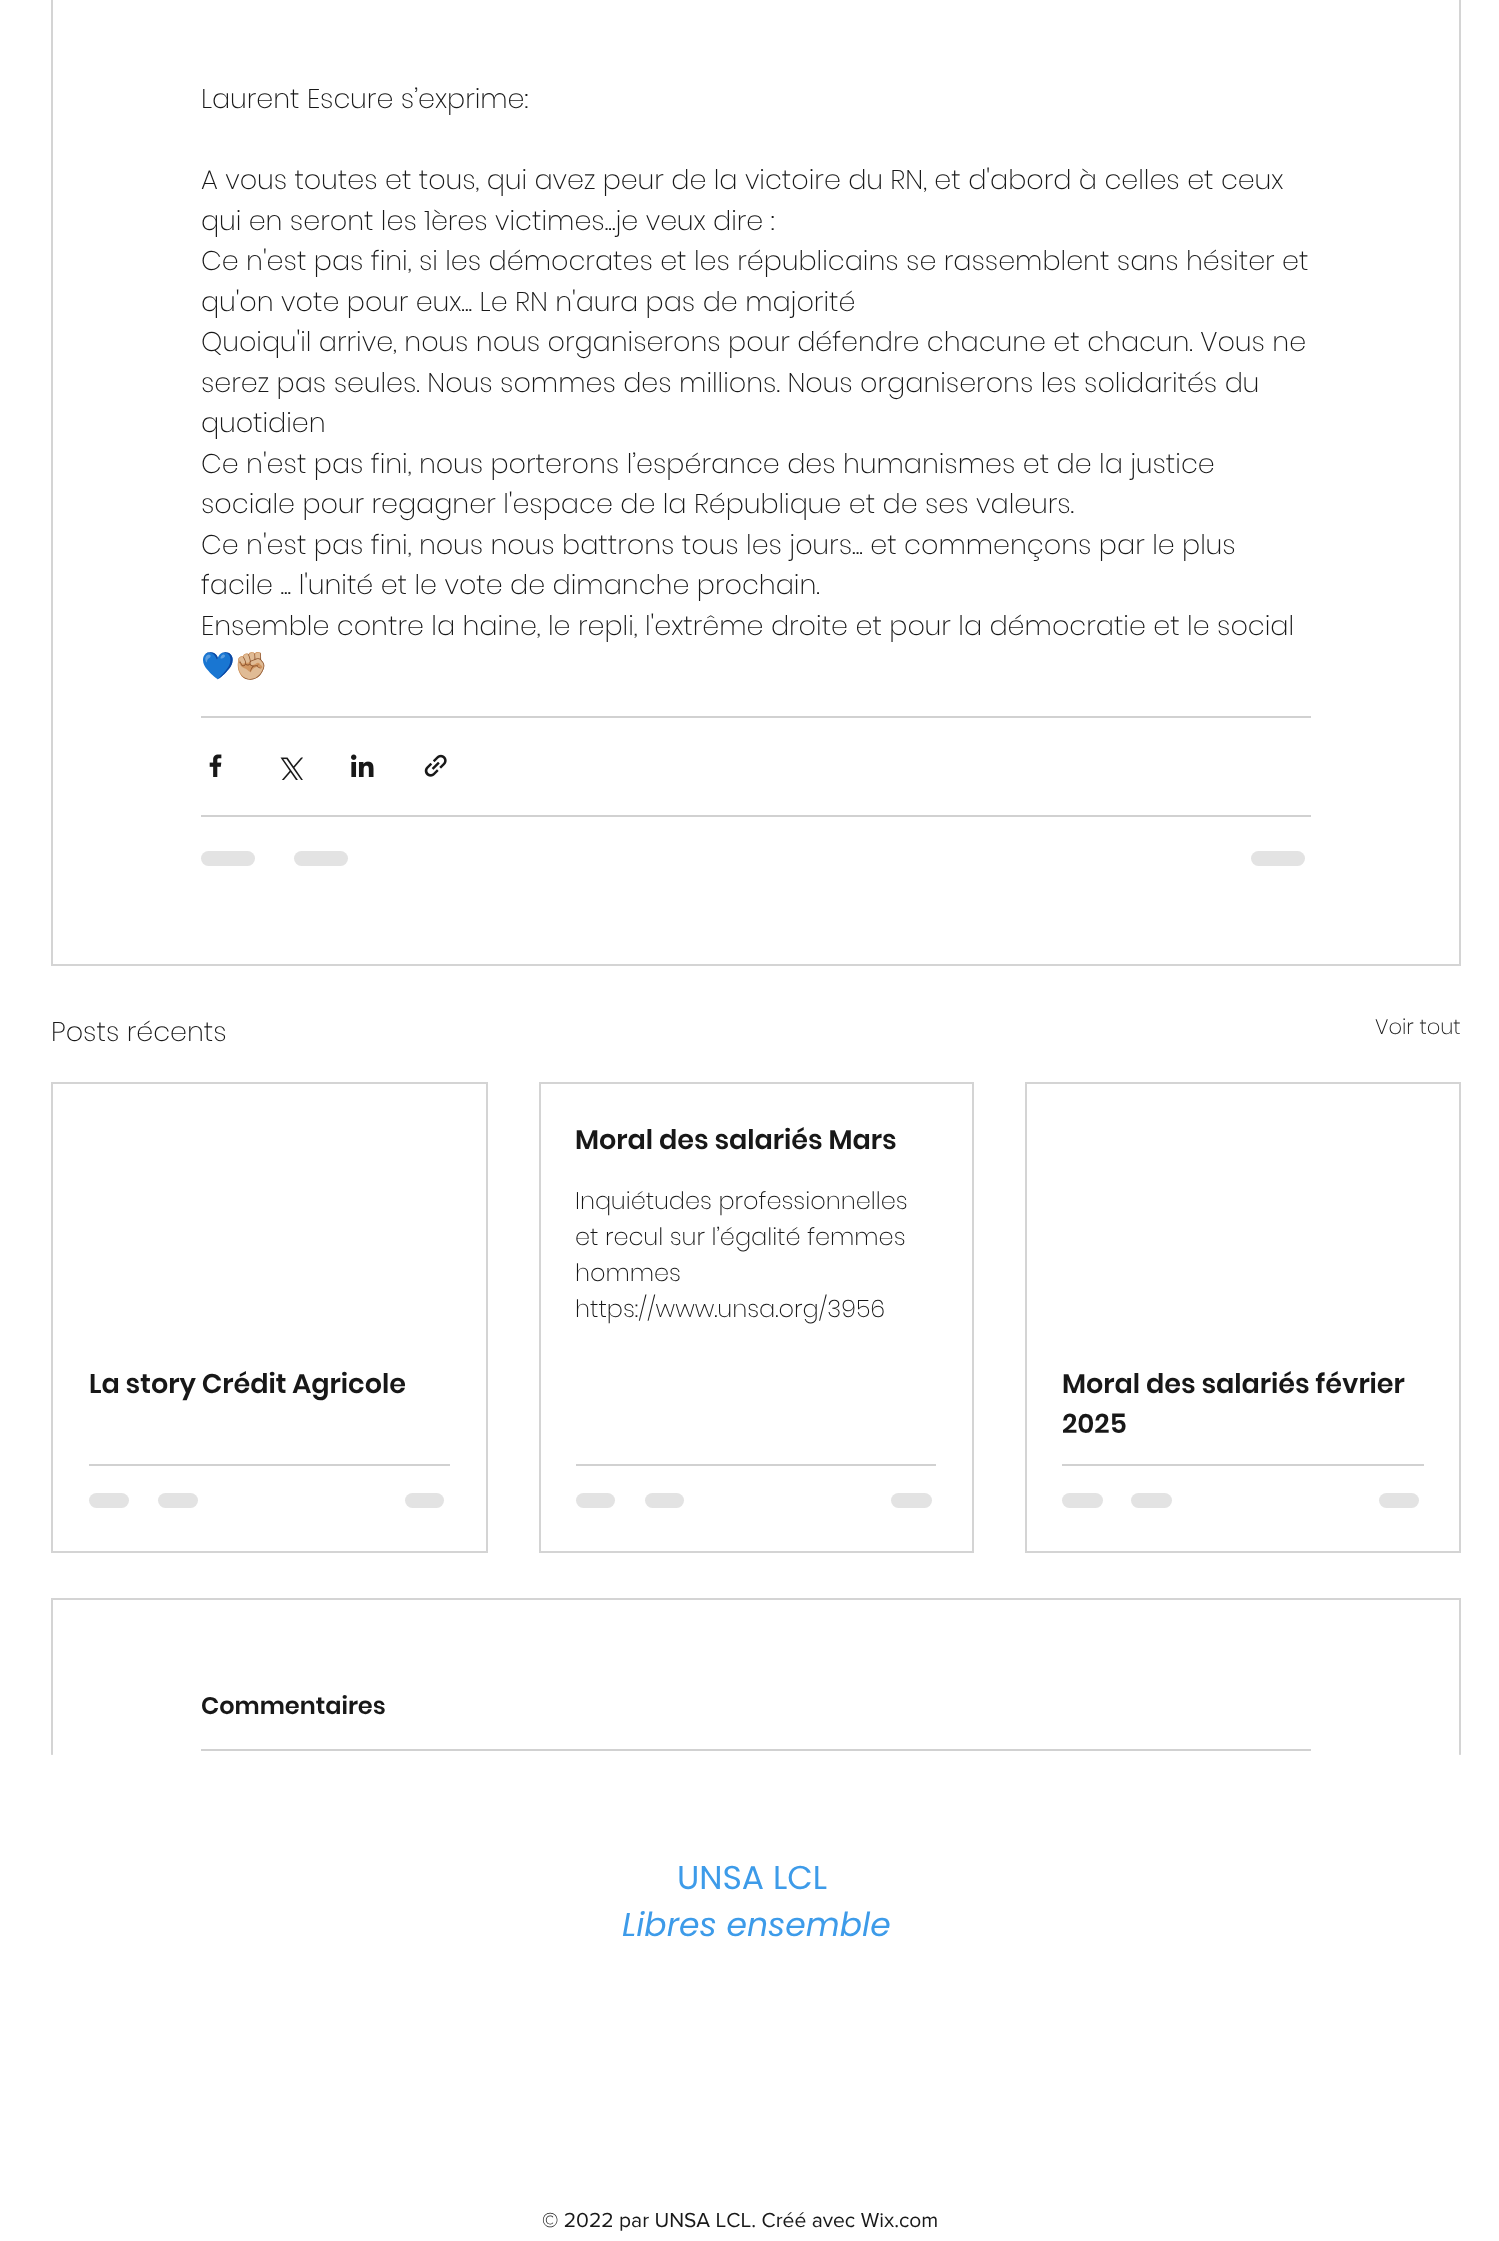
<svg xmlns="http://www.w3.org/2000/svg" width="1499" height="2241">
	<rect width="100%" height="100%" fill="#FFFFFF" />
	<rect x="52" y="-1" width="1408" height="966" fill="none" stroke="#D4D4D4" stroke-width="2" />
	<g font-family="Poppins" font-size="27" font-weight="200" fill="#181818">
		<text x="201" y="108">Laurent Escure s’exprime:</text>
		<text x="201" y="189">A vous toutes et tous, qui avez peur de la victoire du RN, et d'abord à celles et ceux</text>
		<text x="201" y="230">qui en seront les 1ères victimes...je veux dire :</text>
		<text x="201" y="270">Ce n'est pas fini, si les démocrates et les républicains se rassemblent sans hésiter et</text>
		<text x="201" y="311">qu'on vote pour eux... Le RN n'aura pas de majorité</text>
		<text x="201" y="351">Quoiqu'il arrive, nous nous organiserons pour défendre chacune et chacun. Vous ne</text>
		<text x="201" y="392">serez pas seules. Nous sommes des millions. Nous organiserons les solidarités du</text>
		<text x="201" y="432">quotidien</text>
		<text x="201" y="473">Ce n'est pas fini, nous porterons l’espérance des humanismes et de la justice</text>
		<text x="201" y="513">sociale pour regagner l'espace de la République et de ses valeurs.</text>
		<text x="201" y="554">Ce n'est pas fini, nous nous battrons tous les jours... et commençons par le plus</text>
		<text x="201" y="594">facile ... l'unité et le vote de dimanche prochain.</text>
		<text x="201" y="635">Ensemble contre la haine, le repli, l'extrême droite et pour la démocratie et le social</text>
	</g>
	<text x="201" y="675" font-family="Noto Color Emoji" font-size="27" fill="#181818">💙✊🏼</text>
	<rect x="201" y="716" width="1110" height="2" fill="#D1D1D1" />
	<image x="209" y="754" width="13" height="23" href="assets/img1.png" />
	<image x="280" y="757" width="23" height="23" href="assets/img2.png" />
	<image x="351" y="754" width="23" height="23" href="assets/img3.png" />
	<image x="424" y="754" width="23" height="23" href="assets/img4.png" />
	<rect x="201" y="815" width="1110" height="2" fill="#D1D1D1" />
	<rect x="201" y="851" width="54" height="15" rx="7.5" fill="#E3E3E3" />
	<rect x="294" y="851" width="54" height="15" rx="7.5" fill="#E3E3E3" />
	<rect x="1251" y="851" width="54" height="15" rx="7.5" fill="#E3E3E3" />
	<text x="51" y="1041" font-family="Poppins" font-size="27" font-weight="200" fill="#181818">Posts récents</text>
	<text x="1375" y="1034" font-family="Poppins" font-size="21" font-weight="200" fill="#181818">Voir tout</text>
	<rect x="540" y="1083" width="433" height="469" fill="none" stroke="#D4D4D4" stroke-width="2" />
	<text x="575" y="1149" font-family="Poppins" font-size="27" font-weight="600" fill="#181818">Moral des salariés Mars</text>
	<g font-family="Poppins" font-size="24" font-weight="200" fill="#181818">
		<text x="575" y="1209">Inquiétudes professionnelles</text>
		<text x="575" y="1245">et recul sur l’égalité femmes</text>
		<text x="575" y="1281">hommes</text>
		<text x="575" y="1317">https://www.unsa.org/3956</text>
	</g>
	<rect x="576" y="1464" width="360" height="2" fill="#D1D1D1" />
	<rect x="576" y="1493" width="39" height="15" rx="7.5" fill="#E3E3E3" />
	<rect x="645" y="1493" width="39" height="15" rx="7.5" fill="#E3E3E3" />
	<rect x="891" y="1493" width="41" height="15" rx="7.5" fill="#E3E3E3" />
	<rect x="52" y="1083" width="435" height="469" fill="none" stroke="#D4D4D4" stroke-width="2" />
	<text x="89" y="1393" font-family="Poppins" font-size="27" font-weight="600" fill="#181818">La story Crédit Agricole</text>
	<rect x="89" y="1464" width="361" height="2" fill="#D1D1D1" />
	<rect x="89" y="1493" width="40" height="15" rx="7.5" fill="#E3E3E3" />
	<rect x="158" y="1493" width="40" height="15" rx="7.5" fill="#E3E3E3" />
	<rect x="405" y="1493" width="39" height="15" rx="7.5" fill="#E3E3E3" />
	<rect x="1026" y="1083" width="434" height="469" fill="none" stroke="#D4D4D4" stroke-width="2" />
	<g font-family="Poppins" font-size="27" font-weight="600" fill="#181818">
		<text x="1062" y="1393">Moral des salariés février</text>
		<text x="1062" y="1433">2025</text>
	</g>
	<rect x="1062" y="1464" width="362" height="2" fill="#D1D1D1" />
	<rect x="1062" y="1493" width="41" height="15" rx="7.5" fill="#E3E3E3" />
	<rect x="1131" y="1493" width="41" height="15" rx="7.5" fill="#E3E3E3" />
	<rect x="1379" y="1493" width="40" height="15" rx="7.5" fill="#E3E3E3" />
	<rect x="52" y="1599" width="1408" height="395" fill="none" stroke="#D4D4D4" stroke-width="2" />
	<text x="201" y="1714" font-family="Poppins" font-size="24" font-weight="600" fill="#181818">Commentaires</text>
	<rect x="201" y="1749" width="1110" height="2" fill="#D1D1D1" />
	<rect x="51" y="1754" width="1410" height="1" fill="#FFFFFF" fill-opacity="0.15" />
	<rect x="51" y="1755" width="1410" height="240" fill="#FFFFFF" />
	<text x="677" y="1889" font-family="Poppins" font-size="33" fill="#3D9BE9">UNSA LCL</text>
	<text x="622" y="1936" font-family="Poppins" font-size="33" font-style="italic" fill="#3D9BE9">Libres ensemble</text>
	<text x="542" y="2227" font-family="'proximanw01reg'" font-size="21" fill="#181818">© 2022 par UNSA LCL. Créé avec Wix.com</text>
</svg>
